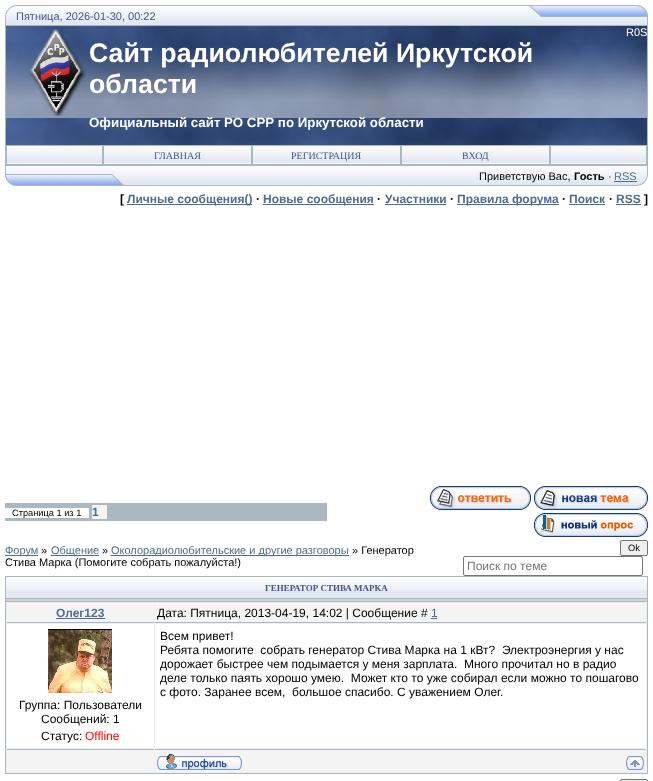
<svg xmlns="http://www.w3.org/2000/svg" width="653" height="781">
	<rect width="100%" height="100%" fill="#FFFFFF" />
	<image x="5" y="5" width="11" height="21" href="assets/img1.png" />
	<image x="16" y="5" width="513" height="21" href="assets/img2.png" />
	<text x="16" y="20" font-family="Liberation Sans" font-size="11" fill="#445588">Пятница, 2026-01-30, 00:22</text>
	<image x="529" y="5" width="119" height="21" href="assets/img3.png" />
	<rect x="647" y="26" width="1" height="139" fill="#A9B8C2" />
	<rect x="5" y="26" width="1" height="139" fill="#A9B8C2" />
	<image x="6" y="26" width="641" height="119" href="assets/img4.png" />
	<image x="29" y="28" width="57" height="88" href="assets/img5.png" />
	<text x="626" y="36" font-family="Liberation Sans" font-size="11" fill="#FFFFFF">R0S</text>
	<g font-family="Liberation Sans" font-size="26.7" font-weight="700" fill="#FFFFFF">
		<text x="89" y="62">Сайт радиолюбителей Иркутской</text>
		<text x="89" y="93">области</text>
	</g>
	<text x="89" y="127" font-family="Liberation Sans" font-size="13.3" font-weight="700" fill="#FFFFFF">Официальный сайт РО СРР по Иркутской области</text>
	<image x="7" y="146" width="95" height="18" href="assets/img6.png" />
	<rect x="6.5" y="145.5" width="96" height="19" fill="none" stroke="#A9B8C2" />
	<image x="104" y="146" width="147" height="18" href="assets/img7.png" />
	<rect x="103.5" y="145.5" width="148" height="19" fill="none" stroke="#A9B8C2" />
	<text x="154" y="159" font-family="Liberation Serif" font-size="10" fill="#445588">ГЛАВНАЯ</text>
	<image x="253" y="146" width="147" height="18" href="assets/img7.png" />
	<rect x="252.5" y="145.5" width="148" height="19" fill="none" stroke="#A9B8C2" />
	<text x="291" y="159" font-family="Liberation Serif" font-size="10" fill="#445588">РЕГИСТРАЦИЯ</text>
	<image x="402" y="146" width="147" height="18" href="assets/img7.png" />
	<rect x="401.5" y="145.5" width="148" height="19" fill="none" stroke="#A9B8C2" />
	<text x="462" y="159" font-family="Liberation Serif" font-size="10" fill="#445588">ВХОД</text>
	<image x="551" y="146" width="95" height="18" href="assets/img6.png" />
	<rect x="550.5" y="145.5" width="96" height="19" fill="none" stroke="#A9B8C2" />
	<image x="5" y="165" width="119" height="21" href="assets/img8.png" />
	<image x="124" y="165" width="513" height="21" href="assets/img2.png" />
	<text x="479" y="180" font-family="Liberation Sans" font-size="11" fill="#000000">Приветствую Вас,</text>
	<text x="574" y="180" font-family="Liberation Sans" font-size="11" font-weight="700" fill="#000000">Гость</text>
	<text x="608" y="180" font-family="Liberation Sans" font-size="11" fill="#000000">·</text>
	<text x="614" y="180" font-family="Liberation Sans" font-size="11" fill="#4D6D91">RSS</text>
	<rect x="614" y="181" width="23" height="1" fill="#4D6D91" />
	<image x="637" y="165" width="11" height="21" href="assets/img9.png" />
	<text x="120" y="203" font-family="Liberation Sans" font-size="12" font-weight="700" fill="#000000">[</text>
	<rect x="127" y="204" width="125" height="1" fill="#4D6D91" />
	<text x="127" y="203" font-family="Liberation Sans" font-size="12" font-weight="700" fill="#4D6D91">Личные сообщения()</text>
	<text x="256" y="203" font-family="Liberation Sans" font-size="12" font-weight="700" fill="#000000">·</text>
	<rect x="263" y="204" width="111" height="1" fill="#4D6D91" />
	<text x="263" y="203" font-family="Liberation Sans" font-size="12" font-weight="700" fill="#4D6D91">Новые сообщения</text>
	<text x="377" y="203" font-family="Liberation Sans" font-size="12" font-weight="700" fill="#000000">·</text>
	<text x="385" y="203" font-family="Liberation Sans" font-size="12" font-weight="700" fill="#4D6D91">Участники</text>
	<rect x="385" y="204" width="61" height="1" fill="#4D6D91" />
	<text x="450" y="203" font-family="Liberation Sans" font-size="12" font-weight="700" fill="#000000">·</text>
	<rect x="457" y="204" width="102" height="1" fill="#4D6D91" />
	<text x="457" y="203" font-family="Liberation Sans" font-size="12" font-weight="700" fill="#4D6D91">Правила форума</text>
	<text x="562" y="203" font-family="Liberation Sans" font-size="12" font-weight="700" fill="#000000">·</text>
	<text x="569" y="203" font-family="Liberation Sans" font-size="12" font-weight="700" fill="#4D6D91">Поиск</text>
	<rect x="569" y="204" width="36" height="1" fill="#4D6D91" />
	<text x="609" y="203" font-family="Liberation Sans" font-size="12" font-weight="700" fill="#000000">·</text>
	<text x="616" y="203" font-family="Liberation Sans" font-size="12" font-weight="700" fill="#4D6D91">RSS</text>
	<rect x="616" y="204" width="25" height="1" fill="#4D6D91" />
	<text x="644" y="203" font-family="Liberation Sans" font-size="12" font-weight="700" fill="#000000">]</text>
	<rect x="5" y="503" width="322" height="18" fill="#A9B8C2" />
	<rect x="5" y="508" width="84" height="10" fill="#FFFFFF" />
	<text x="12" y="516" font-family="Liberation Sans" font-size="9.25" fill="#000000">Страница 1 из 1</text>
	<rect x="92" y="505" width="15" height="14" fill="#F4F4F4" />
	<text x="92" y="516" font-family="Liberation Sans" font-size="12" font-weight="700" fill="#4D6D91">1</text>
	<image x="430" y="486" width="101" height="24" href="assets/img10.png" />
	<image x="534" y="486" width="114" height="24" href="assets/img11.png" />
	<image x="534" y="513" width="114" height="24" href="assets/img12.png" />
	<rect x="5" y="555" width="33" height="1" fill="#4D6D91" />
	<text x="5" y="554" font-family="Liberation Sans" font-size="11" fill="#4D6D91">Форум</text>
	<text x="41" y="554" font-family="Liberation Sans" font-size="11" fill="#000000">»</text>
	<rect x="51" y="555" width="48" height="1" fill="#4D6D91" />
	<text x="51" y="554" font-family="Liberation Sans" font-size="11" fill="#4D6D91">Общение</text>
	<text x="102" y="554" font-family="Liberation Sans" font-size="11" fill="#000000">»</text>
	<rect x="111" y="555" width="238" height="1" fill="#4D6D91" />
	<text x="111" y="554" font-family="Liberation Sans" font-size="11" fill="#4D6D91">Околорадиолюбительские и другие разговоры</text>
	<g font-family="Liberation Sans" font-size="11" fill="#000000">
		<text x="352" y="554">» Генератор</text>
		<text x="5" y="566">Стива Марка (Помогите собрать пожалуйста!)</text>
	</g>
	<rect x="620.5" y="540.5" width="27" height="15" rx="1.5" fill="#EFEFEF" stroke="#767676" />
	<text x="628" y="551" font-family="Liberation Sans" font-size="9.25" fill="#000000">Ok</text>
	<rect x="463.5" y="556.5" width="179" height="19" rx="1.5" fill="none" stroke="#767676" />
	<text x="467" y="570" font-family="Liberation Sans" font-size="12" fill="#757575">Поиск по теме</text>
	<rect x="5" y="576" width="643" height="198" fill="#A9B8C2" />
	<rect x="6" y="591" width="641" height="7" fill="#E4E8F3" />
	<image x="6" y="577" width="641" height="14" href="assets/img13.png" />
	<text x="265" y="591" font-family="Liberation Serif" font-size="9" font-weight="700" fill="#445588">ГЕНЕРАТОР СТИВА МАРКА</text>
	<rect x="6" y="599" width="641" height="2" fill="#D2D2D2" />
	<rect x="6" y="602" width="641" height="171" fill="#EFEFEF" />
	<rect x="7" y="603" width="147" height="19" fill="#F4F4F4" />
	<rect x="7" y="622" width="147" height="1" fill="#A9B8C2" />
	<text x="56" y="617" font-family="Liberation Sans" font-size="12" font-weight="700" fill="#4D6D91">Олег123</text>
	<rect x="56" y="618" width="49" height="1" fill="#4D6D91" />
	<rect x="155" y="603" width="491" height="19" fill="#F4F4F4" />
	<rect x="155" y="622" width="491" height="1" fill="#A9B8C2" />
	<text x="157" y="617" font-family="Liberation Sans" font-size="12" fill="#000000">Дата: Пятница, 2013-04-19, 14:02 | Сообщение #</text>
	<text x="431" y="617" font-family="Liberation Sans" font-size="12" fill="#4D6D91">1</text>
	<rect x="431" y="618" width="6" height="1" fill="#4D6D91" />
	<rect x="155" y="624" width="491" height="124" fill="#FFFFFF" />
	<g font-family="Liberation Sans" font-size="12" fill="#000000">
		<text x="160" y="640">Всем привет!</text>
		<text x="160" y="654" xml:space="preserve">Ребята помогите  собрать генератор Стива Марка на 1 кВт?  Электроэнергия у нас</text>
		<text x="160" y="668" xml:space="preserve">дорожает быстрее чем подымается у меня зарплата.  Много прочитал но в радио</text>
		<text x="160" y="682" xml:space="preserve">деле только паять хорошо умею.  Может кто то уже собирал если можно то пошагово</text>
		<text x="160" y="696" xml:space="preserve">с фото. Заранее всем,  большое спасибо. С уважением Олег.</text>
	</g>
	<rect x="7" y="624" width="147" height="124" fill="#FFFFFF" />
	<image x="48" y="629" width="64" height="64" href="assets/img14.png" />
	<g font-family="Liberation Sans" font-size="12" fill="#000000">
		<text x="19" y="709">Группа: Пользователи</text>
		<text x="41" y="723">Сообщений: 1</text>
		<text x="41" y="740">Статус:</text>
	</g>
	<text x="85" y="740" font-family="Liberation Sans" font-size="12" fill="#FF0000">Offline</text>
	<rect x="7" y="750" width="147" height="22" fill="#F4F4F4" />
	<rect x="7" y="749" width="147" height="1" fill="#A9B8C2" />
	<rect x="155" y="750" width="491" height="22" fill="#F4F4F4" />
	<rect x="155" y="749" width="491" height="1" fill="#A9B8C2" />
	<image x="157" y="754" width="85" height="16" href="assets/img15.png" />
	<image x="626" y="756" width="18" height="14" href="assets/img16.png" />
	<rect x="620.5" y="779.5" width="27" height="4" rx="1.5" fill="#EFEFEF" stroke="#767676" />
</svg>
